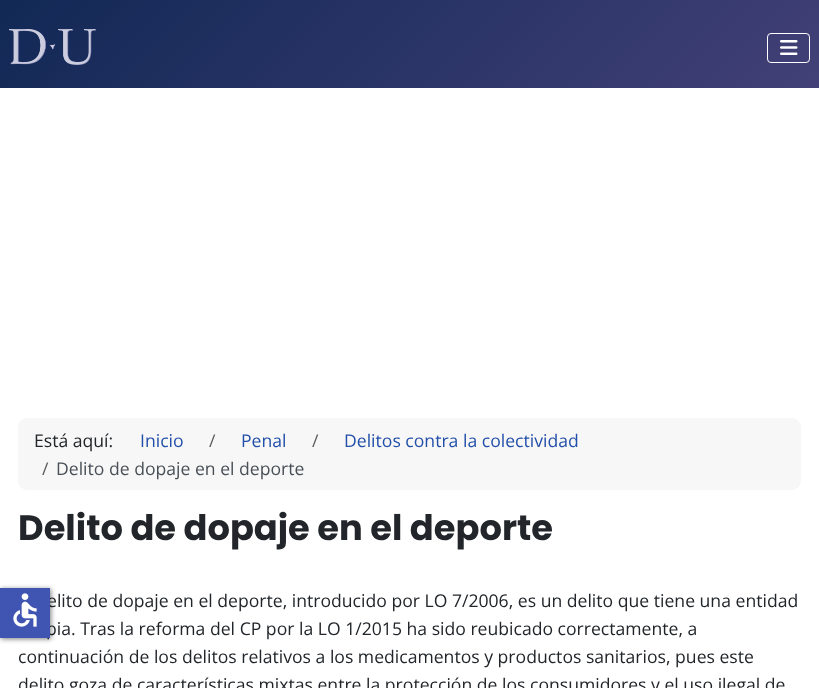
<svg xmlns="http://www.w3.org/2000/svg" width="819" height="688">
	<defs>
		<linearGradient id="g1" gradientUnits="userSpaceOnUse" x1="183" y1="-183" x2="636" y2="271"><stop offset="0" stop-color="#112855" /><stop offset="1" stop-color="#424077" /></linearGradient>
	</defs>
	<rect width="100%" height="100%" fill="#FFFFFF" />
	<rect x="0" y="0" width="819" height="88" fill="url(#g1)" />
	<image x="9" y="29" width="87" height="36" href="assets/img1.png" />
	<rect x="767.5" y="33.5" width="42" height="29" rx="3.5" fill="none" stroke="#FFFFFF" />
	<image x="780" y="40" width="18" height="15" href="assets/img2.png" />
	<rect x="18" y="418" width="783" height="72" rx="9" fill="#F7F7F7" />
	<text x="34" y="447" font-family="Open Sans" font-size="17.6" fill="#22262A">Está aquí:</text>
	<text x="140" y="447" font-family="Open Sans" font-size="17.6" fill="#224FAA">Inicio</text>
	<text x="209" y="447" font-family="Open Sans" font-size="17.6" fill="#575A5D">/</text>
	<text x="241" y="447" font-family="Open Sans" font-size="17.6" fill="#224FAA">Penal</text>
	<text x="312" y="447" font-family="Open Sans" font-size="17.6" fill="#575A5D">/</text>
	<text x="344" y="447" font-family="Open Sans" font-size="17.6" fill="#224FAA">Delitos contra la colectividad</text>
	<text x="42" y="475" font-family="Open Sans" font-size="17.6" fill="#575A5D">/</text>
	<text x="56" y="475" font-family="Open Sans" font-size="17.6" fill="#484F56">Delito de dopaje en el deporte</text>
	<text x="18" y="540" font-family="Poppins" font-size="35.25" font-weight="700" fill="#22262A">Delito de dopaje en el deporte</text>
	<g font-family="Open Sans" font-size="17.6" fill="#22262A">
		<text x="47" y="607">elito de dopaje en el deporte, introducido por LO 7/2006, es un delito que tiene una entidad</text>
		<text x="46" y="635">pia. Tras la reforma del CP por la LO 1/2015 ha sido reubicado correctamente, a</text>
		<text x="18" y="663">continuación de los delitos relativos a los medicamentos y productos sanitarios, pues este</text>
		<text x="18" y="691">delito goza de características mixtas entre la protección de los consumidores y el uso ilegal de</text>
	</g>
	<rect x="1" y="589" width="50" height="50" fill="#000000" fill-opacity="0.5" filter="blur(2.5px)" />
	<rect x="0" y="588" width="50" height="50" fill="#4054B2" />
	<image x="13" y="593" width="24" height="34" href="assets/img3.png" />
</svg>
